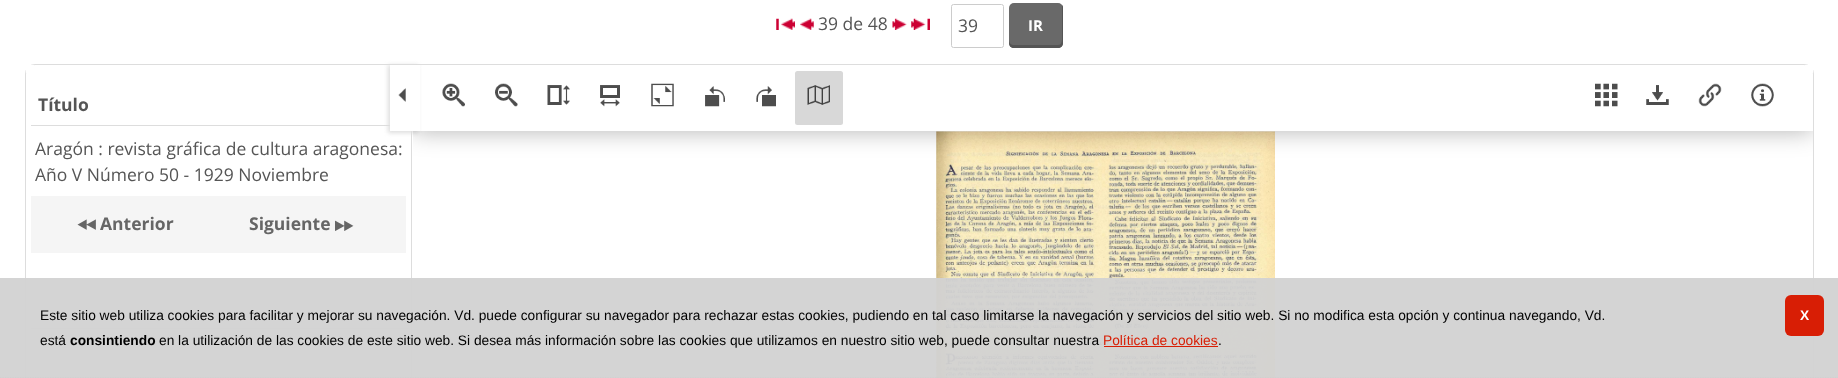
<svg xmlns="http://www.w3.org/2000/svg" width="1838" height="378">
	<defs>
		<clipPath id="clip1"><rect x="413" y="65" width="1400" height="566" /></clipPath>
		<clipPath id="clip2"><path d="M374 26H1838V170H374ZM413 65H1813V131H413Z" clip-rule="evenodd" /></clipPath>
	</defs>
	<rect width="100%" height="100%" fill="#FFFFFF" />
	<image x="776" y="18" width="19" height="12" href="assets/img1.png" />
	<image x="800" y="18" width="14" height="12" href="assets/img2.png" />
	<text x="818" y="30" font-family="Open Sans" font-size="17.5" fill="#555555">39 de 48</text>
	<image x="892" y="18" width="15" height="12" href="assets/img3.png" />
	<image x="911" y="18" width="19" height="12" href="assets/img4.png" />
	<rect x="951.5" y="4.5" width="52" height="43" rx="2" fill="none" stroke="#CCCCCC" />
	<text x="958" y="32" font-family="Open Sans" font-size="17.5" fill="#555555">39</text>
	<rect x="1009" y="3" width="54" height="45" rx="5" fill="#696969" />
	<path d="M1009 40V43C1009 46 1011 48 1014 48H1058C1061 48 1063 46 1063 43V8C1063 7 1063 6 1062 5V40C1062 43 1060 45 1058 45H1014C1011 45 1009 43 1009 40Z" fill="#555555" />
	<text x="1028" y="31" font-family="Open Sans" font-size="15" font-weight="700" fill="#FFFFFF">IR</text>
	<rect x="25.5" y="64.5" width="1788" height="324" rx="9.5" fill="none" stroke="#DDDDDD" />
	<rect x="26" y="65" width="8" height="8" fill="#FFFFFF" />
	<rect x="411" y="131" width="1" height="247" fill="#DDDDDD" />
	<rect x="31" y="125" width="359" height="1" fill="#DDDDDD" />
	<text x="38" y="111" font-family="Open Sans" font-size="17.5" font-weight="700" fill="#555555">Título</text>
	<g font-family="Open Sans" font-size="17.5" fill="#555555">
		<text x="35" y="155">Aragón : revista gráfica de cultura aragonesa:</text>
		<text x="35" y="181">Año V Número 50 - 1929 Noviembre</text>
	</g>
	<rect x="31" y="196" width="375" height="57" fill="#F5F5F5" />
	<image x="77" y="219" width="19" height="11" href="assets/img5.png" />
	<g font-family="Open Sans" font-size="17.5" font-weight="700" fill="#666666">
		<text x="100" y="230">Anterior</text>
		<text x="249" y="230">Siguiente</text>
	</g>
	<image x="335" y="220" width="19" height="11" href="assets/img6.png" />
	<rect x="31" y="328" width="379" height="1" fill="#DDDDDD" />
	<rect x="388" y="65" width="30" height="68" fill="#DDDDDD" filter="blur(2px)" />
	<rect x="390" y="65" width="30" height="66" fill="#FFFFFF" />
	<image x="398" y="88" width="8" height="14" href="assets/img7.png" />
	<rect x="1805" y="65" width="8" height="8" fill="#FFFFFF" />
	<image x="936" y="131" width="339" height="247" href="assets/img20.png" />
	<g clip-path="url(#clip1)">
		<g clip-path="url(#clip2)">
			<rect x="413" y="65" width="1400" height="66" fill="#000000" fill-opacity="0.3" filter="blur(12.5px)" />
		</g>
	</g>
	<image x="442" y="83" width="23" height="24" href="assets/img8.png" />
	<image x="495" y="83" width="23" height="24" href="assets/img9.png" />
	<image x="547" y="85" width="23" height="20" href="assets/img10.png" />
	<image x="600" y="85" width="20" height="22" href="assets/img11.png" />
	<image x="651" y="83" width="23" height="24" href="assets/img12.png" />
	<image x="705" y="86" width="20" height="21" href="assets/img13.png" />
	<image x="756" y="86" width="20" height="21" href="assets/img14.png" />
	<rect x="795" y="71" width="48" height="54" rx="2.5" fill="#D8D8D8" />
	<image x="807" y="85" width="23" height="20" href="assets/img15.png" />
	<image x="1595" y="83" width="23" height="24" href="assets/img16.png" />
	<image x="1646" y="85" width="23" height="20" href="assets/img17.png" />
	<image x="1698" y="83" width="24" height="24" href="assets/img18.png" />
	<image x="1751" y="83" width="23" height="24" href="assets/img19.png" />
	<rect x="0" y="278" width="1838" height="100" fill="#D2D2D2" fill-opacity="0.95" />
	<path d="M0 378H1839" fill="none" stroke="#CCCCCC" stroke-width="1.2" stroke-dasharray="1.25 1.25" />
	<g font-family="Liberation Sans" font-size="13.75" fill="#000000">
		<text x="40" y="320">Este sitio web utiliza cookies para facilitar y mejorar su navegación. Vd. puede configurar su navegador para rechazar estas cookies, pudiendo en tal caso limitarse la navegación y servicios del sitio web. Si no modifica esta opción y continua navegando, Vd.</text>
		<text x="40" y="345">está</text>
	</g>
	<text x="70" y="345" font-family="Liberation Sans" font-size="13.75" font-weight="700" fill="#000000">consintiendo</text>
	<text x="159" y="345" font-family="Liberation Sans" font-size="13.75" fill="#000000">en la utilización de las cookies de este sitio web. Si desea más información sobre las cookies que utilizamos en nuestro sitio web, puede consultar nuestra</text>
	<text x="1103" y="345" font-family="Liberation Sans" font-size="13.75" fill="#D81E05">Política de cookies</text>
	<text x="1218" y="345" font-family="Liberation Sans" font-size="13.75" fill="#000000">.</text>
	<rect x="1104" y="346" width="114" height="1" fill="#D81E05" />
	<rect x="1785" y="295" width="39" height="41" rx="6" fill="#D81E05" />
	<text x="1800" y="320" font-family="Liberation Sans" font-size="13.75" font-weight="700" letter-spacing="-1" fill="#FFFFFF">X</text>
</svg>
